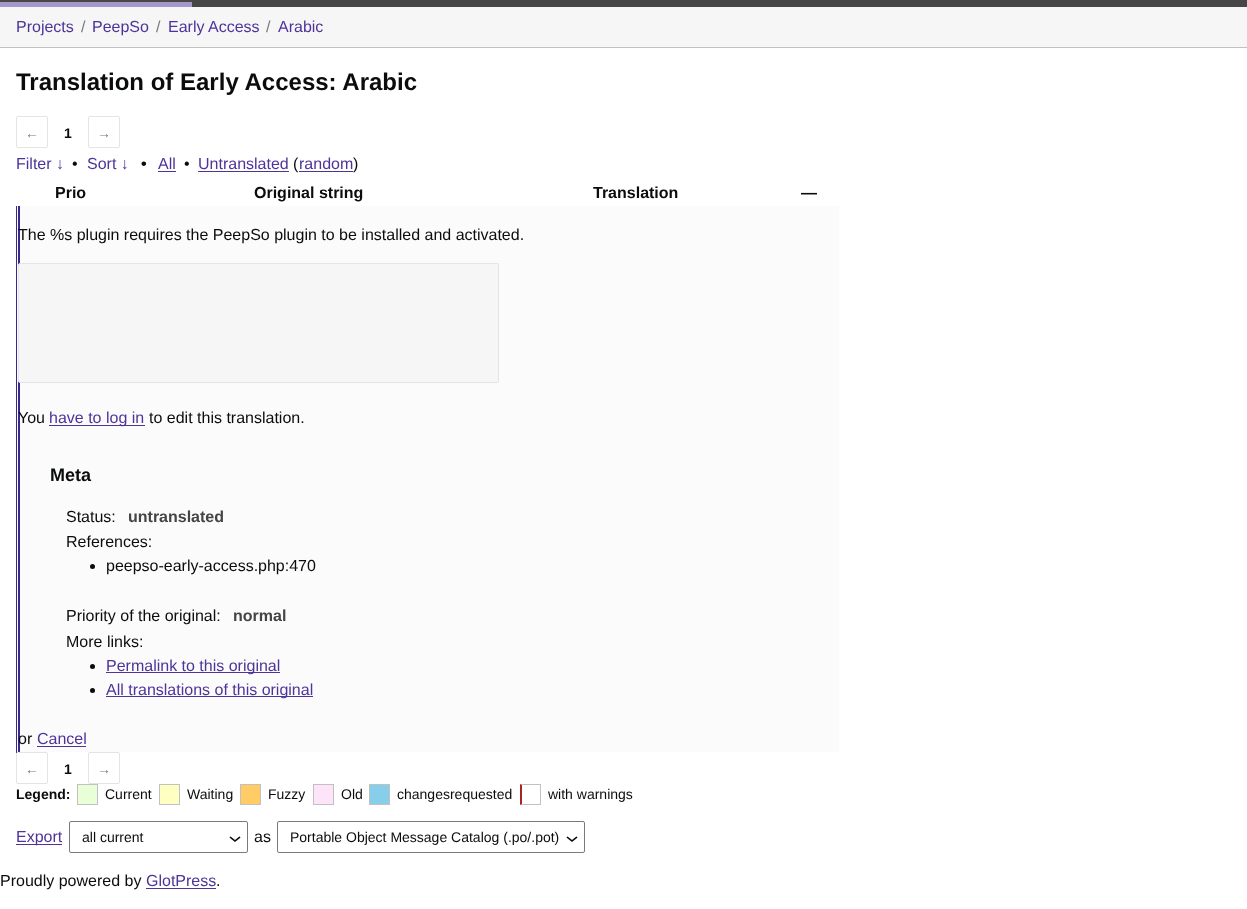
<svg xmlns="http://www.w3.org/2000/svg" width="1247" height="909">
	<rect width="100%" height="100%" fill="#FFFFFF" />
	<rect x="0" y="0" width="1247" height="7" fill="#464646" />
	<rect x="0" y="2" width="192" height="5" fill="#A597C9" />
	<rect x="0" y="7" width="1247" height="40" fill="#F6F6F6" />
	<rect x="0" y="47" width="1247" height="1" fill="#C1C1C1" />
	<text x="16" y="32" font-family="Liberation Sans" font-size="16" fill="#4E3499">Projects</text>
	<text x="81" y="32" font-family="Liberation Sans" font-size="16" fill="#7A7A7A">/</text>
	<text x="92" y="32" font-family="Liberation Sans" font-size="16" fill="#4E3499">PeepSo</text>
	<text x="156" y="32" font-family="Liberation Sans" font-size="16" fill="#7A7A7A">/</text>
	<text x="168" y="32" font-family="Liberation Sans" font-size="16" fill="#4E3499">Early Access</text>
	<text x="266" y="32" font-family="Liberation Sans" font-size="16" fill="#7A7A7A">/</text>
	<text x="278" y="32" font-family="Liberation Sans" font-size="16" fill="#4E3499">Arabic</text>
	<text x="16" y="90" font-family="Liberation Sans" font-size="24" font-weight="700" fill="#0B0C0C">Translation of Early Access: Arabic</text>
	<rect x="16.5" y="116.5" width="31" height="31" rx="1.5" fill="none" stroke="#E4E4E4" />
	<text x="25" y="138" font-family="Liberation Sans" font-size="14" fill="#7A7A7A">←</text>
	<text x="64" y="138" font-family="Liberation Sans" font-size="14" font-weight="700" fill="#0B0C0C">1</text>
	<rect x="88.5" y="116.5" width="31" height="31" rx="1.5" fill="none" stroke="#E4E4E4" />
	<text x="97" y="138" font-family="Liberation Sans" font-size="14" fill="#7A7A7A">→</text>
	<text x="16" y="169" font-family="Liberation Sans" font-size="16" fill="#4E3499">Filter ↓</text>
	<text x="72" y="169" font-family="Liberation Sans" font-size="16" fill="#0B0C0C">•</text>
	<text x="87" y="169" font-family="Liberation Sans" font-size="16" fill="#4E3499">Sort ↓</text>
	<text x="141" y="169" font-family="Liberation Sans" font-size="16" font-weight="700" fill="#0B0C0C">•</text>
	<text x="158" y="169" font-family="Liberation Sans" font-size="16" fill="#4E3499">All</text>
	<rect x="158" y="171" width="18" height="1" fill="#4E3499" />
	<text x="184" y="169" font-family="Liberation Sans" font-size="16" fill="#0B0C0C">•</text>
	<text x="198" y="169" font-family="Liberation Sans" font-size="16" fill="#4E3499">Untranslated</text>
	<rect x="198" y="171" width="91" height="1" fill="#4E3499" />
	<text x="293" y="169" font-family="Liberation Sans" font-size="16" fill="#0B0C0C">(</text>
	<text x="299" y="169" font-family="Liberation Sans" font-size="16" fill="#4E3499">random</text>
	<rect x="299" y="171" width="54" height="1" fill="#4E3499" />
	<text x="353" y="169" font-family="Liberation Sans" font-size="16" fill="#0B0C0C">)</text>
	<g font-family="Liberation Sans" font-size="16" font-weight="700" fill="#0B0C0C">
		<text x="55" y="198">Prio</text>
		<text x="254" y="198">Original string</text>
		<text x="593" y="198">Translation</text>
		<text x="801" y="198">—</text>
	</g>
	<rect x="17" y="206" width="822" height="546" fill="#FBFBFB" />
	<rect x="18" y="206" width="2" height="546" fill="#39298B" />
	<rect x="16" y="206" width="1" height="547" fill="#39298B" />
	<text x="18" y="240" font-family="Liberation Sans" font-size="16" fill="#0B0C0C">The %s plugin requires the PeepSo plugin to be installed and activated.</text>
	<rect x="18.5" y="263.5" width="480" height="119" rx="1.5" fill="#F6F6F6" stroke="#E4E4E4" />
	<text x="18" y="423" font-family="Liberation Sans" font-size="16" fill="#0B0C0C">You</text>
	<rect x="49" y="425" width="96" height="1" fill="#4E3499" />
	<text x="49" y="423" font-family="Liberation Sans" font-size="16" fill="#4E3499">have to log in</text>
	<text x="149" y="423" font-family="Liberation Sans" font-size="16" fill="#0B0C0C">to edit this translation.</text>
	<text x="50" y="481" font-family="Liberation Sans" font-size="18" font-weight="700" fill="#0B0C0C">Meta</text>
	<text x="66" y="522" font-family="Liberation Sans" font-size="16" fill="#0B0C0C">Status:</text>
	<text x="128" y="522" font-family="Liberation Sans" font-size="16" font-weight="700" fill="#444444">untranslated</text>
	<text x="66" y="547" font-family="Liberation Sans" font-size="16" fill="#0B0C0C">References:</text>
	<circle cx="92.5" cy="566.5" r="2.5" fill="#0B0C0C" />
	<g font-family="Liberation Sans" font-size="16" fill="#0B0C0C">
		<text x="106" y="571">peepso-early-access.php:470</text>
		<text x="66" y="621">Priority of the original:</text>
	</g>
	<text x="233" y="621" font-family="Liberation Sans" font-size="16" font-weight="700" fill="#444444">normal</text>
	<text x="66" y="647" font-family="Liberation Sans" font-size="16" fill="#0B0C0C">More links:</text>
	<circle cx="92.5" cy="666.5" r="2.5" fill="#0B0C0C" />
	<rect x="106" y="672" width="174" height="1" fill="#4E3499" />
	<text x="106" y="671" font-family="Liberation Sans" font-size="16" fill="#4E3499">Permalink to this original</text>
	<circle cx="92.5" cy="690.5" r="2.5" fill="#0B0C0C" />
	<rect x="106" y="696" width="207" height="1" fill="#4E3499" />
	<text x="106" y="695" font-family="Liberation Sans" font-size="16" fill="#4E3499">All translations of this original</text>
	<text x="18" y="744" font-family="Liberation Sans" font-size="16" fill="#0B0C0C">or</text>
	<text x="37" y="744" font-family="Liberation Sans" font-size="16" fill="#4E3499">Cancel</text>
	<rect x="37" y="746" width="49" height="1" fill="#4E3499" />
	<rect x="16.5" y="752.5" width="31" height="31" rx="1.5" fill="none" stroke="#E4E4E4" />
	<text x="25" y="774" font-family="Liberation Sans" font-size="14" fill="#7A7A7A">←</text>
	<text x="64" y="774" font-family="Liberation Sans" font-size="14" font-weight="700" fill="#0B0C0C">1</text>
	<rect x="88.5" y="752.5" width="31" height="31" rx="1.5" fill="none" stroke="#E4E4E4" />
	<text x="97" y="774" font-family="Liberation Sans" font-size="14" fill="#7A7A7A">→</text>
	<text x="16" y="799" font-family="Liberation Sans" font-size="14" font-weight="700" fill="#0B0C0C">Legend:</text>
	<rect x="77.5" y="784.5" width="20" height="20" fill="#E9FFD8" stroke="#C1C1C1" />
	<text x="105" y="799" font-family="Liberation Sans" font-size="14" fill="#0B0C0C">Current</text>
	<rect x="159.5" y="784.5" width="20" height="20" fill="#FFFFC2" stroke="#C1C1C1" />
	<text x="187" y="799" font-family="Liberation Sans" font-size="14" fill="#0B0C0C">Waiting</text>
	<rect x="240.5" y="784.5" width="20" height="20" fill="#FFCC66" stroke="#C1C1C1" />
	<text x="268" y="799" font-family="Liberation Sans" font-size="14" fill="#0B0C0C">Fuzzy</text>
	<rect x="313.5" y="784.5" width="20" height="20" fill="#FEE4F8" stroke="#C1C1C1" />
	<text x="341" y="799" font-family="Liberation Sans" font-size="14" fill="#0B0C0C">Old</text>
	<rect x="369.5" y="784.5" width="20" height="20" fill="#87CEEB" stroke="#C1C1C1" />
	<text x="397" y="799" font-family="Liberation Sans" font-size="14" fill="#0B0C0C">changesrequested</text>
	<path d="M520 784H541L540 785H522Z" fill="#C1C1C1" />
	<rect x="540" y="784" width="1" height="21" fill="#C1C1C1" />
	<path d="M541 805H520L522 804H540Z" fill="#C1C1C1" />
	<path d="M520 805V784L522 785V804Z" fill="#A62626" />
	<text x="548" y="799" font-family="Liberation Sans" font-size="14" fill="#0B0C0C">with warnings</text>
	<rect x="16" y="844" width="46" height="1" fill="#4E3499" />
	<text x="16" y="842" font-family="Liberation Sans" font-size="16" fill="#4E3499">Export</text>
	<image x="229" y="836" width="12" height="6" href="assets/img1.png" />
	<rect x="69.5" y="821.5" width="178" height="31" rx="1.5" fill="none" stroke="#7A7A7A" />
	<text x="82" y="842" font-family="Liberation Sans" font-size="14" fill="#0B0C0C">all current</text>
	<text x="254" y="842" font-family="Liberation Sans" font-size="16" fill="#0B0C0C">as</text>
	<image x="566" y="836" width="12" height="6" href="assets/img1.png" />
	<rect x="277.5" y="821.5" width="307" height="31" rx="1.5" fill="none" stroke="#7A7A7A" />
	<text x="290" y="842" font-family="Liberation Sans" font-size="14" fill="#0B0C0C">Portable Object Message Catalog (.po/.pot)</text>
	<text x="0" y="886" font-family="Liberation Sans" font-size="16" fill="#0B0C0C">Proudly powered by</text>
	<text x="146" y="886" font-family="Liberation Sans" font-size="16" fill="#4E3499">GlotPress</text>
	<rect x="146" y="888" width="70" height="1" fill="#4E3499" />
	<text x="216" y="886" font-family="Liberation Sans" font-size="16" fill="#0B0C0C">.</text>
</svg>
